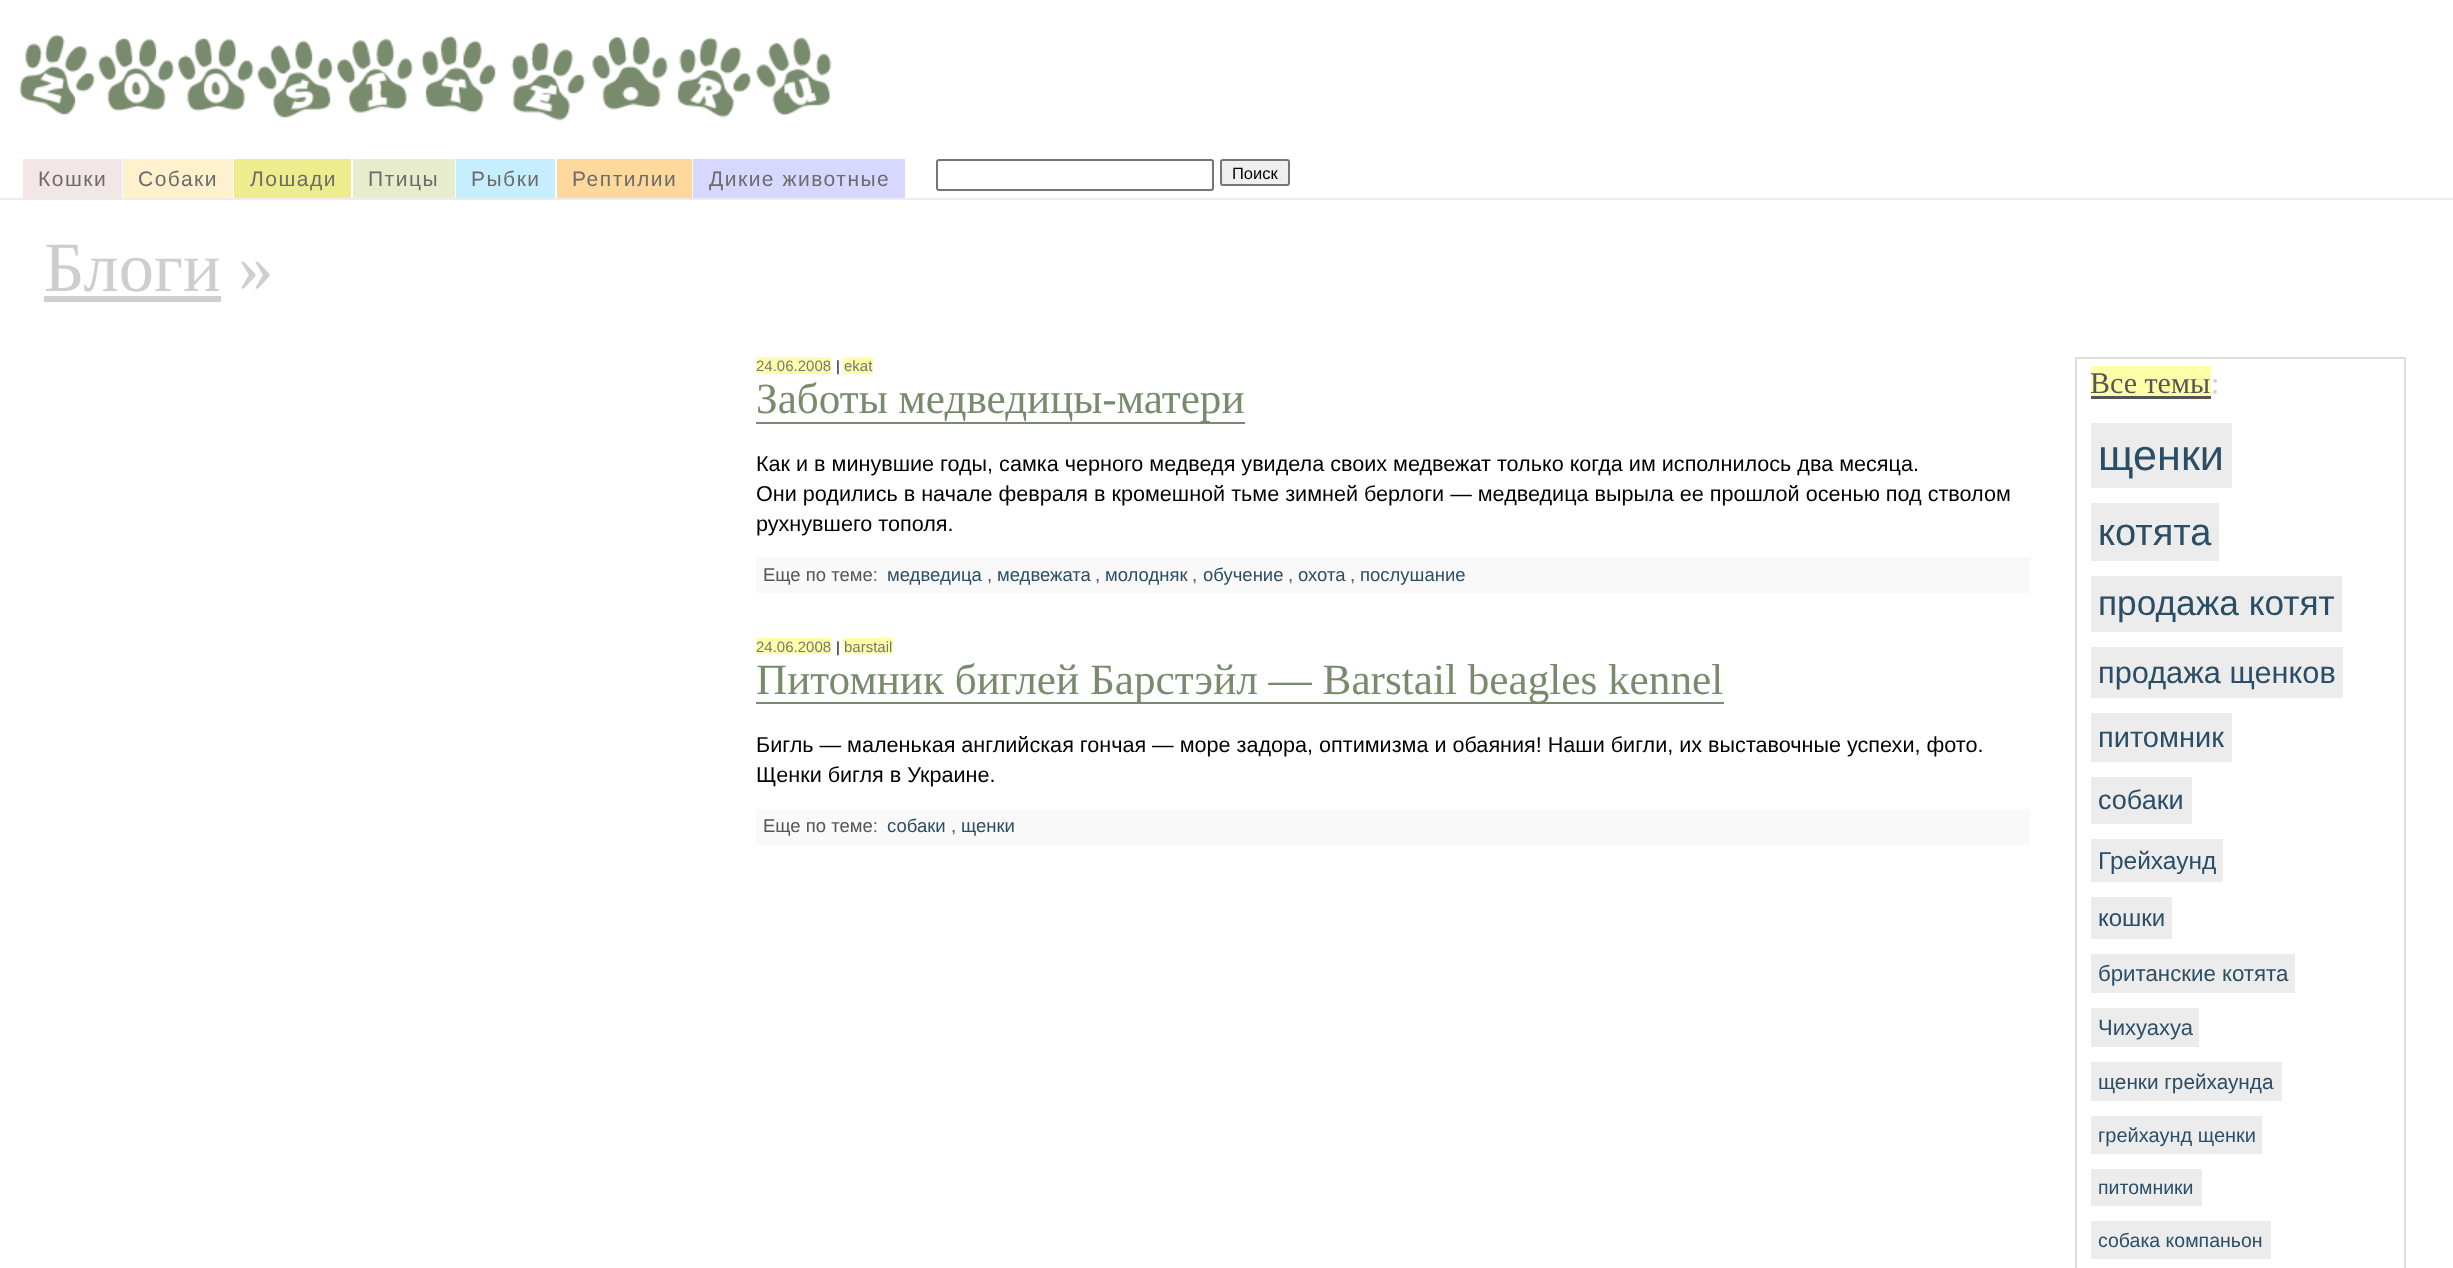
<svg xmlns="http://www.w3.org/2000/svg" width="2453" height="1268">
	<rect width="100%" height="100%" fill="#FFFFFF" />
	<image x="19" y="34" width="813" height="87" href="assets/img1.png" />
	<rect x="23" y="159" width="99" height="39" fill="#F2E6E6" />
	<text x="38" y="186" font-family="Liberation Sans" font-size="21" letter-spacing="1.5" fill="#6C6C6C">Кошки</text>
	<rect x="123" y="159" width="110" height="39" fill="#FFF1CC" />
	<text x="138" y="186" font-family="Liberation Sans" font-size="21" letter-spacing="1.5" fill="#6C6C6C">Собаки</text>
	<rect x="234" y="159" width="117" height="39" fill="#EDED8E" />
	<text x="250" y="186" font-family="Liberation Sans" font-size="21" letter-spacing="1.5" fill="#6C6C6C">Лошади</text>
	<rect x="353" y="159" width="102" height="39" fill="#E6ECCC" />
	<text x="368" y="186" font-family="Liberation Sans" font-size="21" letter-spacing="1.5" fill="#6C6C6C">Птицы</text>
	<rect x="456" y="159" width="99" height="39" fill="#C5EFFF" />
	<text x="471" y="186" font-family="Liberation Sans" font-size="21" letter-spacing="1.5" fill="#6C6C6C">Рыбки</text>
	<rect x="557" y="159" width="135" height="39" fill="#FFD89B" />
	<text x="572" y="186" font-family="Liberation Sans" font-size="21" letter-spacing="1.5" fill="#6C6C6C">Рептилии</text>
	<rect x="693" y="159" width="212" height="39" fill="#D7D7FF" />
	<text x="709" y="186" font-family="Liberation Sans" font-size="21" letter-spacing="1.5" fill="#6C6C6C">Дикие животные</text>
	<rect x="937" y="160" width="276" height="30" rx="2" fill="none" stroke="#767676" stroke-width="2" />
	<rect x="1221" y="160" width="68" height="25" rx="2" fill="#EFEFEF" stroke="#767676" stroke-width="2" />
	<text x="1232" y="179" font-family="Liberation Sans" font-size="16.5" fill="#000000">Поиск</text>
	<rect x="0" y="198" width="2453" height="2" fill="#ECECEC" />
	<text x="44" y="291" font-family="Liberation Serif" font-size="70.5" fill="#CECECE">Блоги »</text>
	<rect x="44" y="296" width="177" height="6" fill="#CECECE" />
	<rect x="756" y="357" width="75" height="17" fill="#FFFFAA" />
	<text x="756" y="371" font-family="Liberation Sans" font-size="15" fill="#757575">24.06.2008</text>
	<text x="836" y="371" font-family="Liberation Sans" font-size="15" fill="#000000">|</text>
	<rect x="843" y="357" width="30" height="17" fill="#FFFFAA" />
	<text x="844" y="371" font-family="Liberation Sans" font-size="15" fill="#757575">ekat</text>
	<rect x="756" y="422" width="489" height="2" fill="#788B6C" />
	<text x="756" y="413" font-family="Liberation Serif" font-size="43.2" fill="#788B6C">Заботы медведицы-матери</text>
	<g font-family="Liberation Sans" font-size="21.6" fill="#000000">
		<text x="756" y="471">Как и в минувшие годы, самка черного медведя увидела своих медвежат только когда им исполнилось два месяца.</text>
		<text x="756" y="501">Они родились в начале февраля в кромешной тьме зимней берлоги — медведица вырыла ее прошлой осенью под стволом</text>
		<text x="756" y="531">рухнувшего тополя.</text>
	</g>
	<rect x="756" y="557" width="1274" height="36" fill="#F9F9F9" />
	<text x="763" y="581" font-family="Liberation Sans" font-size="18.5" fill="#555555">Еще по теме:</text>
	<text x="887" y="581" font-family="Liberation Sans" font-size="18.5" fill="#2B4E67">медведица</text>
	<text x="987" y="581" font-family="Liberation Sans" font-size="18.5" fill="#555555">,</text>
	<text x="997" y="581" font-family="Liberation Sans" font-size="18.5" fill="#2B4E67">медвежата</text>
	<text x="1095" y="581" font-family="Liberation Sans" font-size="18.5" fill="#555555">,</text>
	<text x="1105" y="581" font-family="Liberation Sans" font-size="18.5" fill="#2B4E67">молодняк</text>
	<text x="1192" y="581" font-family="Liberation Sans" font-size="18.5" fill="#555555">,</text>
	<text x="1203" y="581" font-family="Liberation Sans" font-size="18.5" fill="#2B4E67">обучение</text>
	<text x="1288" y="581" font-family="Liberation Sans" font-size="18.5" fill="#555555">,</text>
	<text x="1298" y="581" font-family="Liberation Sans" font-size="18.5" fill="#2B4E67">охота</text>
	<text x="1350" y="581" font-family="Liberation Sans" font-size="18.5" fill="#555555">,</text>
	<text x="1360" y="581" font-family="Liberation Sans" font-size="18.5" fill="#2B4E67">послушание</text>
	<rect x="756" y="638" width="75" height="16" fill="#FFFFAA" />
	<text x="756" y="652" font-family="Liberation Sans" font-size="15" fill="#757575">24.06.2008</text>
	<text x="836" y="652" font-family="Liberation Sans" font-size="15" fill="#000000">|</text>
	<rect x="843" y="638" width="50" height="16" fill="#FFFFAA" />
	<text x="844" y="652" font-family="Liberation Sans" font-size="15" fill="#757575">barstail</text>
	<rect x="756" y="702" width="968" height="2" fill="#788B6C" />
	<text x="756" y="694" font-family="Liberation Serif" font-size="43.2" fill="#788B6C">Питомник биглей Барстэйл — Barstail beagles kennel</text>
	<g font-family="Liberation Sans" font-size="21.6" fill="#000000">
		<text x="756" y="752">Бигль — маленькая английская гончая — море задора, оптимизма и обаяния! Наши бигли, их выставочные успехи, фото.</text>
		<text x="756" y="782">Щенки бигля в Украине.</text>
	</g>
	<rect x="756" y="809" width="1274" height="36" fill="#F9F9F9" />
	<text x="763" y="832" font-family="Liberation Sans" font-size="18.5" fill="#555555">Еще по теме:</text>
	<text x="887" y="832" font-family="Liberation Sans" font-size="18.5" fill="#2B4E67">собаки</text>
	<text x="951" y="832" font-family="Liberation Sans" font-size="18.5" fill="#555555">,</text>
	<text x="961" y="832" font-family="Liberation Sans" font-size="18.5" fill="#2B4E67">щенки</text>
	<rect x="2076" y="358" width="329" height="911" fill="none" stroke="#DDDDDD" stroke-width="2" />
	<rect x="2091" y="366" width="120" height="30" fill="#FFFFAA" />
	<text x="2090" y="393" font-family="Liberation Serif" font-size="30" fill="#555555">Все темы</text>
	<rect x="2091" y="396" width="120" height="3" fill="#555555" />
	<text x="2211" y="393" font-family="Liberation Serif" font-size="30" fill="#CECECE">:</text>
	<rect x="2091" y="423" width="141" height="65" fill="#ECECEC" />
	<text x="2098" y="470" font-family="Liberation Sans" font-size="43.2" fill="#2B4E67">щенки</text>
	<rect x="2091" y="503" width="128" height="58" fill="#ECECEC" />
	<text x="2098" y="545" font-family="Liberation Sans" font-size="38" fill="#2B4E67">котята</text>
	<rect x="2091" y="576" width="251" height="56" fill="#ECECEC" />
	<text x="2098" y="615" font-family="Liberation Sans" font-size="35.25" fill="#2B4E67">продажа котят</text>
	<rect x="2091" y="647" width="252" height="51" fill="#ECECEC" />
	<text x="2098" y="683" font-family="Liberation Sans" font-size="30.75" fill="#2B4E67">продажа щенков</text>
	<rect x="2091" y="713" width="141" height="49" fill="#ECECEC" />
	<text x="2098" y="747" font-family="Liberation Sans" font-size="29" fill="#2B4E67">питомник</text>
	<rect x="2091" y="777" width="101" height="47" fill="#ECECEC" />
	<text x="2098" y="809" font-family="Liberation Sans" font-size="27" fill="#2B4E67">собаки</text>
	<rect x="2091" y="839" width="132" height="43" fill="#ECECEC" />
	<text x="2098" y="869" font-family="Liberation Sans" font-size="24.5" fill="#2B4E67">Грейхаунд</text>
	<rect x="2091" y="897" width="81" height="42" fill="#ECECEC" />
	<text x="2098" y="926" font-family="Liberation Sans" font-size="24" fill="#2B4E67">кошки</text>
	<rect x="2091" y="954" width="204" height="39" fill="#ECECEC" />
	<text x="2098" y="981" font-family="Liberation Sans" font-size="22.25" fill="#2B4E67">британские котята</text>
	<rect x="2091" y="1008" width="108" height="39" fill="#ECECEC" />
	<text x="2098" y="1035" font-family="Liberation Sans" font-size="22" fill="#2B4E67">Чихуахуа</text>
	<rect x="2091" y="1062" width="191" height="39" fill="#ECECEC" />
	<text x="2098" y="1089" font-family="Liberation Sans" font-size="20.75" fill="#2B4E67">щенки грейхаунда</text>
	<rect x="2091" y="1116" width="171" height="38" fill="#ECECEC" />
	<text x="2098" y="1142" font-family="Liberation Sans" font-size="20" fill="#2B4E67">грейхаунд щенки</text>
	<rect x="2091" y="1169" width="111" height="37" fill="#ECECEC" />
	<text x="2098" y="1194" font-family="Liberation Sans" font-size="19.5" fill="#2B4E67">питомники</text>
	<rect x="2091" y="1221" width="180" height="38" fill="#ECECEC" />
	<text x="2098" y="1247" font-family="Liberation Sans" font-size="19.5" fill="#2B4E67">собака компаньон</text>
</svg>
